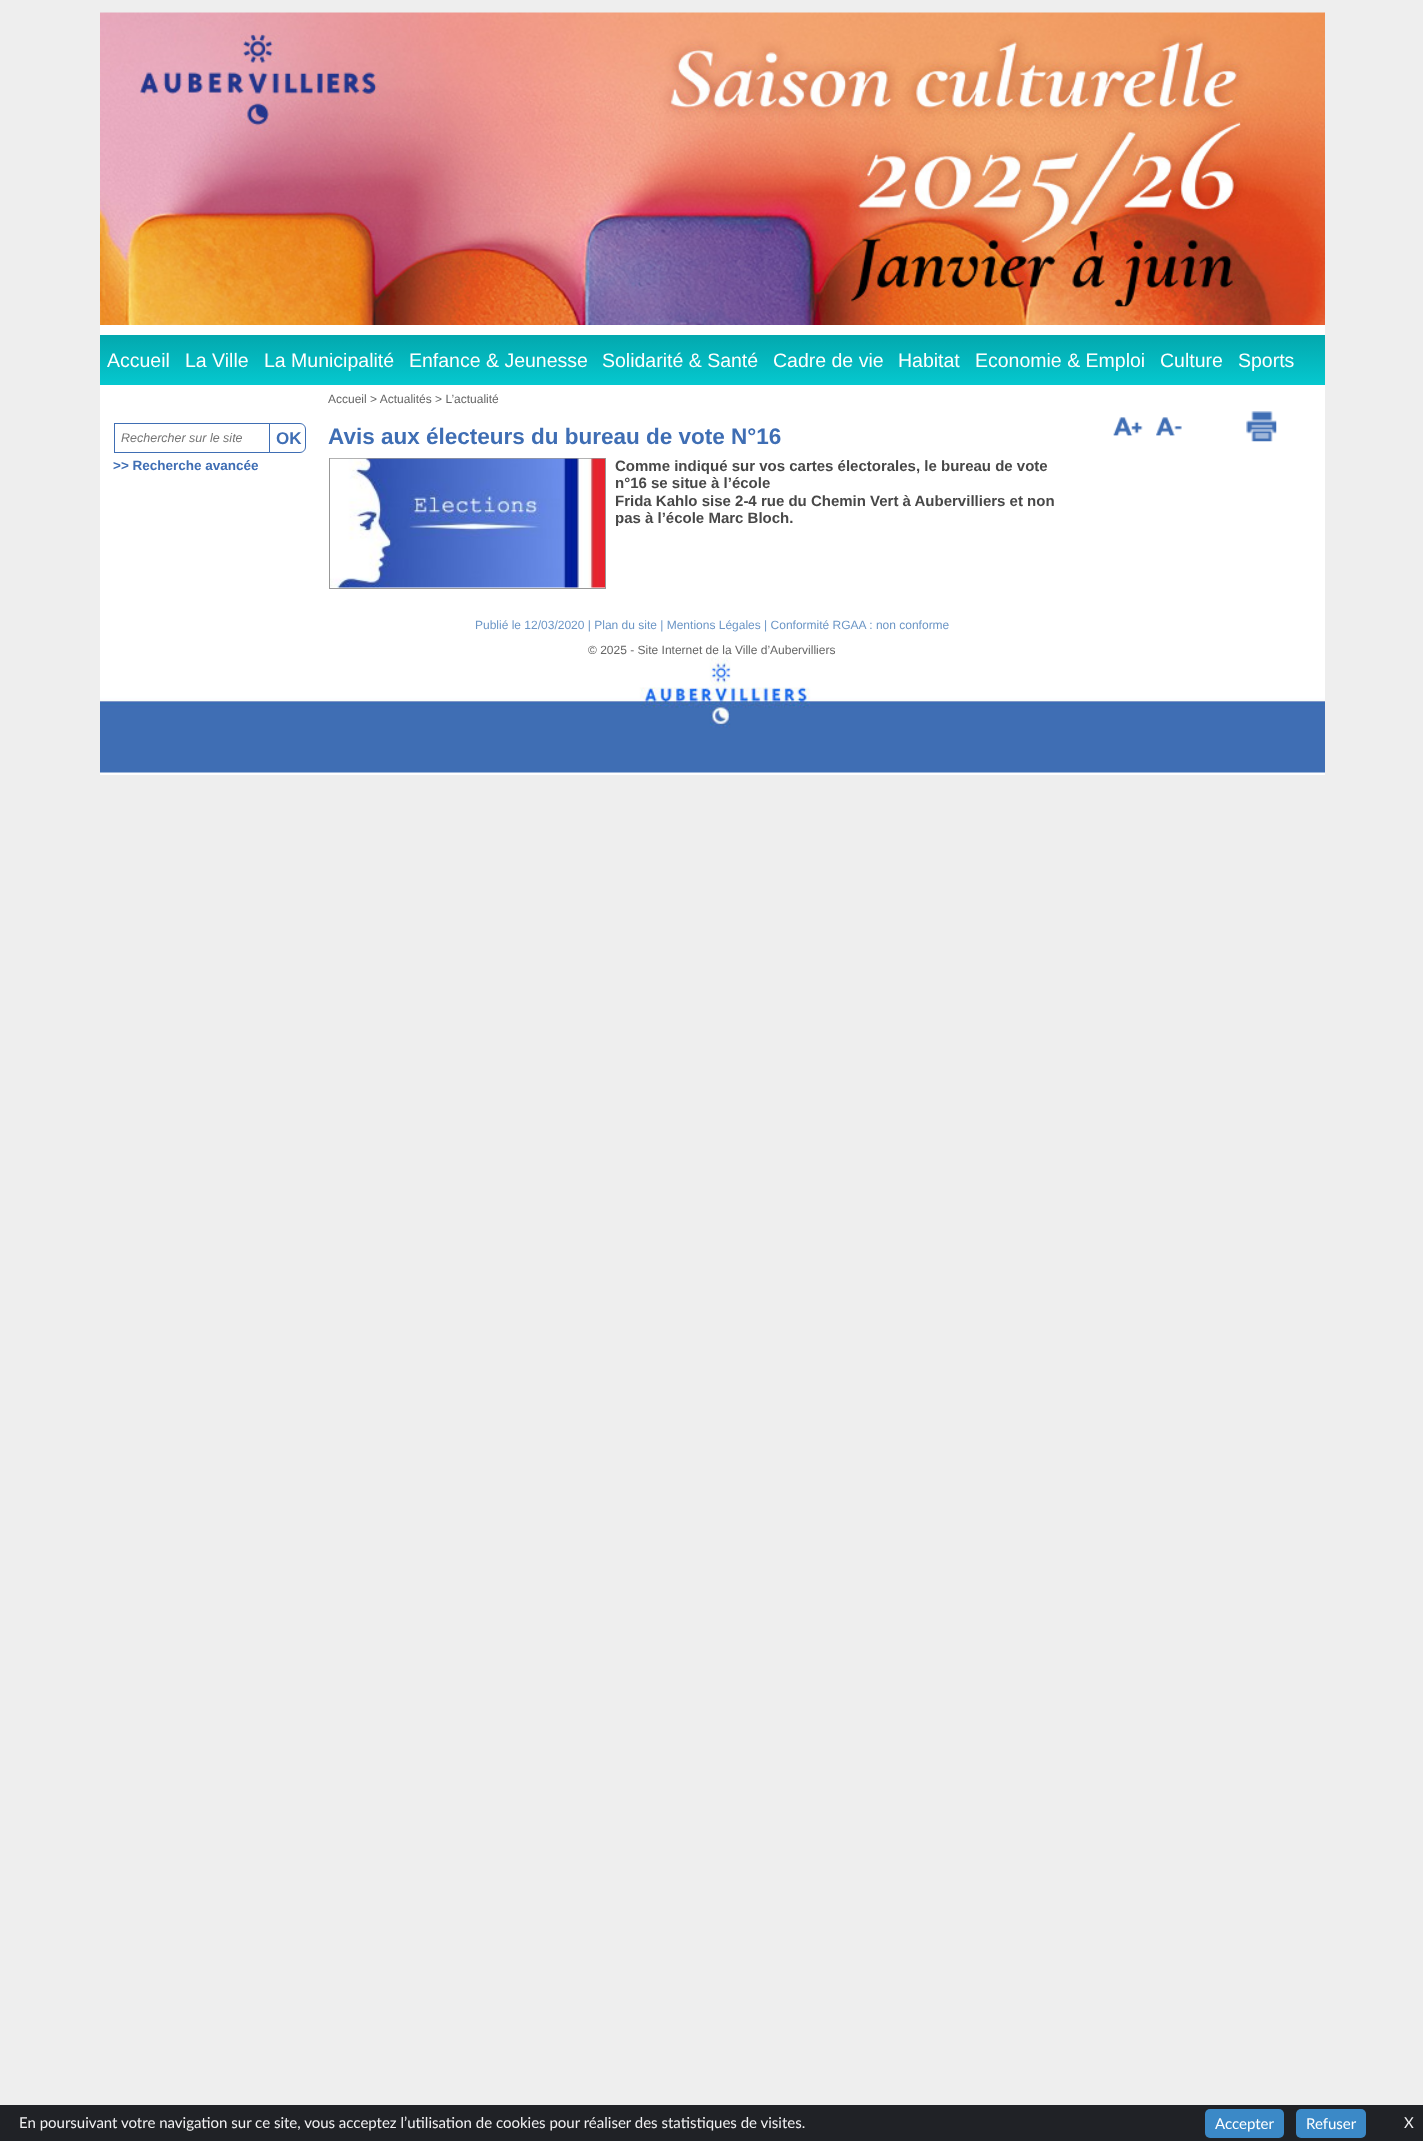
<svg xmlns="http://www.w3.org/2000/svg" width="1423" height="2141">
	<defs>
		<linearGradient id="g1" gradientUnits="userSpaceOnUse" x1="713" y1="335" x2="713" y2="385"><stop offset="0" stop-color="#03A8AE" /><stop offset="1" stop-color="#05C8CF" /></linearGradient>
	</defs>
	<rect width="100%" height="100%" fill="#EEEEEE" />
	<rect x="100" y="325" width="1225" height="450" fill="#FFFFFF" />
	<image x="100" y="12" width="1225" height="313" href="assets/img1.png" />
	<rect x="100" y="335" width="1225" height="50" fill="url(#g1)" />
	<g font-family="Liberation Sans" font-size="19.5" fill="#FFFFFF">
		<text x="107" y="367">Accueil</text>
		<text x="185" y="367">La Ville</text>
		<text x="264" y="367">La Municipalité</text>
		<text x="409" y="367">Enfance &amp; Jeunesse</text>
		<text x="602" y="367">Solidarité &amp; Santé</text>
		<text x="773" y="367">Cadre de vie</text>
		<text x="898" y="367">Habitat</text>
		<text x="975" y="367">Economie &amp; Emploi</text>
		<text x="1160" y="367">Culture</text>
		<text x="1238" y="367">Sports</text>
	</g>
	<rect x="114.5" y="423.5" width="158" height="29" fill="none" stroke="#3F6EB4" />
	<text x="121" y="442" font-family="Liberation Sans" font-size="12.5" font-style="italic" fill="#757575">Rechercher sur le site</text>
	<path d="M269.5 423.5H300C303 423.5 305.5 426 305.5 429V447C305.5 450 303 452.5 300 452.5H269.5Z" fill="#FFFFFF" stroke="#3F6EB4" />
	<text x="276" y="444" font-family="Liberation Sans" font-size="17" font-weight="700" fill="#3F6EB4">OK</text>
	<text x="113" y="470" font-family="Liberation Sans" font-size="13.5" font-weight="700" fill="#3F6EB4">&gt;&gt; Recherche avancée</text>
	<text x="328" y="403" font-family="Liberation Sans" font-size="12" fill="#656565">Accueil &gt; Actualités &gt; L’actualité</text>
	<text x="328" y="444" font-family="Liberation Sans" font-size="22.5" font-weight="700" fill="#3F6EB4">Avis aux électeurs du bureau de vote N°16</text>
	<rect x="329.5" y="458.5" width="276" height="130" fill="none" stroke="#989898" />
	<image x="330" y="458" width="275" height="130" href="assets/img2.png" />
	<g font-family="Liberation Sans" font-size="15" font-weight="700" fill="#484848">
		<text x="615" y="471">Comme indiqué sur vos cartes électorales, le bureau de vote</text>
		<text x="615" y="488">n°16 se situe à l’école</text>
		<text x="615" y="506">Frida Kahlo sise 2-4 rue du Chemin Vert à Aubervilliers et non</text>
		<text x="615" y="523">pas à l’école Marc Bloch.</text>
	</g>
	<image x="1113" y="417" width="30" height="19" href="assets/img3.png" />
	<image x="1156" y="417" width="26" height="19" href="assets/img4.png" />
	<image x="1246" y="411" width="31" height="31" href="assets/img5.png" />
	<text x="475" y="629" font-family="Liberation Sans" font-size="12" fill="#6C96C6">Publié le 12/03/2020 | Plan du site | Mentions Légales | Conformité RGAA : non conforme</text>
	<text x="588" y="654" font-family="Liberation Sans" font-size="12" fill="#656565">© 2025 - Site Internet de la Ville d’Aubervilliers</text>
	<image x="100" y="657" width="1225" height="116" href="assets/img6.png" />
	<rect x="0" y="2105" width="1423" height="36" fill="#202226" />
	<text x="19" y="2128" font-family="Lato" font-size="15" fill="#F1F1F3">En poursuivant votre navigation sur ce site, vous acceptez l’utilisation de cookies pour réaliser des statistiques de visites.</text>
	<rect x="1205" y="2109" width="79" height="29" rx="5" fill="#3B89C7" />
	<text x="1215" y="2129" font-family="Lato" font-size="15" fill="#FFFFFF">Accepter</text>
	<rect x="1296" y="2109" width="70" height="29" rx="5" fill="#3B89C7" />
	<text x="1306" y="2129" font-family="Lato" font-size="15" fill="#FFFFFF">Refuser</text>
	<text x="1404" y="2128" font-family="Lato" font-size="15" fill="#F1F1F3">X</text>
</svg>
